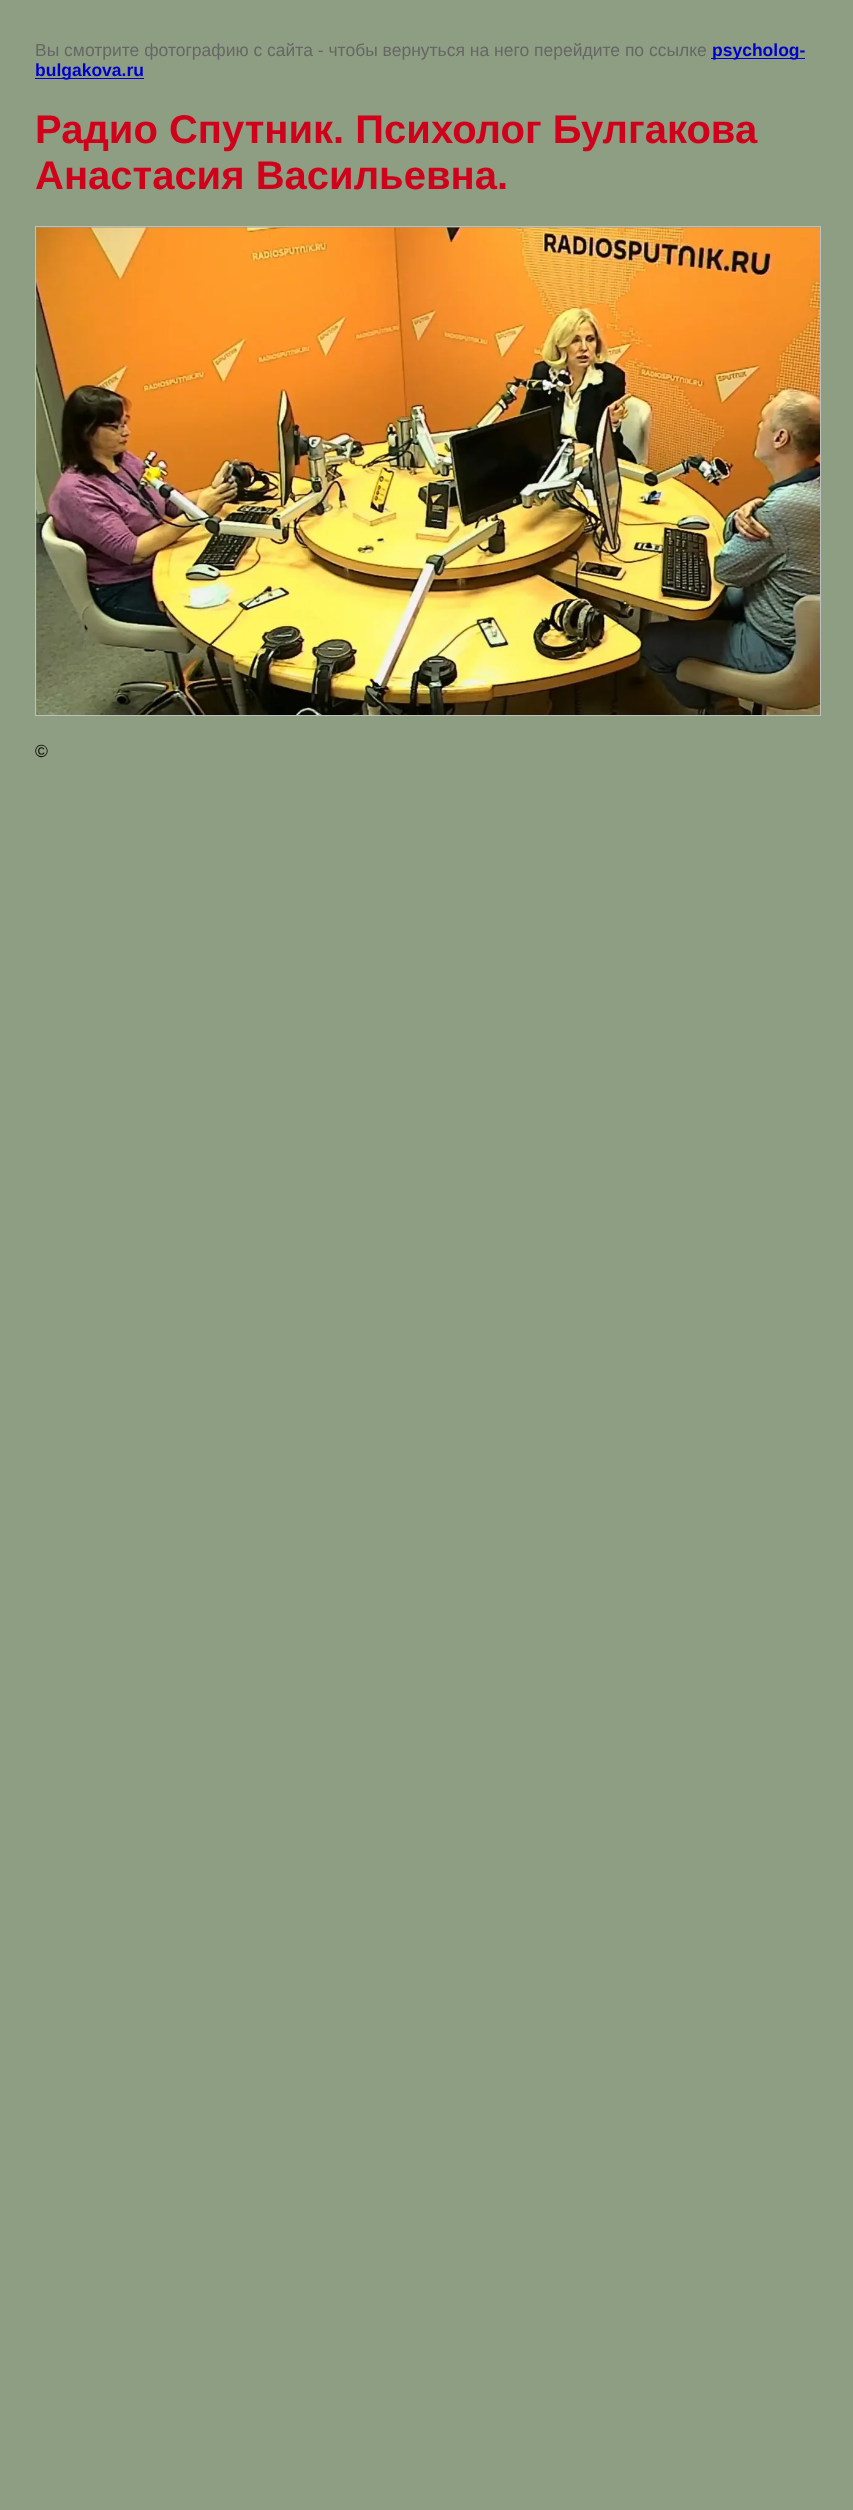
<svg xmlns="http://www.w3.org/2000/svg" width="853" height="2510">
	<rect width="100%" height="100%" fill="#8E9E82" />
	<text x="35" y="56" font-family="Liberation Sans" font-size="17.5" fill="#666666">Вы смотрите фотографию с сайта - чтобы вернуться на него перейдите по ссылке</text>
	<rect x="711" y="58" width="94" height="1" fill="#0000CC" />
	<text x="712" y="56" font-family="Liberation Sans" font-size="17.5" font-weight="700" fill="#0000CC">psycholog-</text>
	<rect x="35" y="78" width="109" height="1" fill="#0000CC" />
	<text x="35" y="76" font-family="Liberation Sans" font-size="17.5" font-weight="700" fill="#0000CC">bulgakova.ru</text>
	<g font-family="Liberation Sans" font-size="40" font-weight="700" fill="#D0021B">
		<text x="35" y="143">Радио Спутник. Психолог Булгакова</text>
		<text x="35" y="189">Анастасия Васильевна.</text>
	</g>
	<rect x="35.5" y="226.5" width="785" height="489" fill="none" stroke="#C0C0C0" />
	<image x="36" y="227" width="784" height="488" href="assets/img1.png" />
	<text x="35" y="757" font-family="Liberation Sans" font-size="17.5" fill="#000000">©</text>
</svg>
